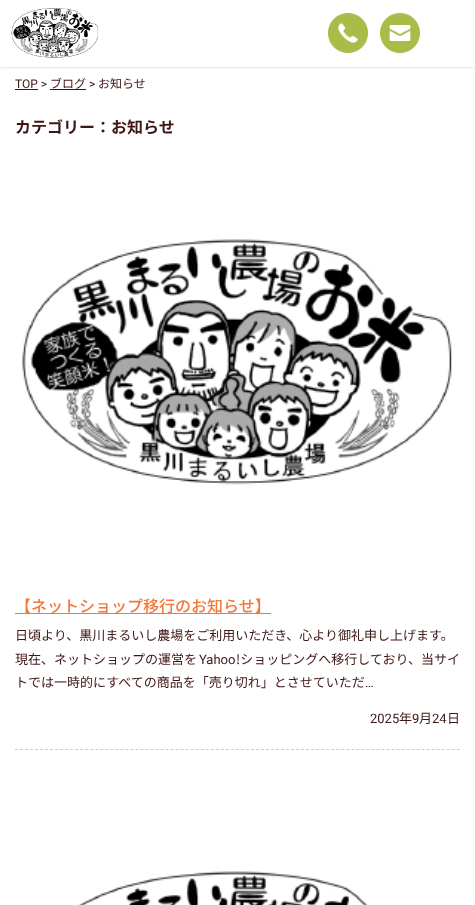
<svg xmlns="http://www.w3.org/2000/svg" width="475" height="905">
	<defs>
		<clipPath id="clip1"><rect x="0" y="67" width="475" height="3" /></clipPath>
	</defs>
	<rect width="100%" height="100%" fill="#FFFFFF" />
	<g clip-path="url(#clip1)">
		<rect x="0" y="0" width="475" height="67" fill="#CCCCCC" filter="blur(1.5px)" />
	</g>
	<image x="11" y="8" width="88" height="50" href="assets/img1.png" />
	<image x="328" y="13" width="40" height="40" href="assets/img2.png" />
	<image x="380" y="13" width="40" height="40" href="assets/img3.png" />
	<text x="15" y="88" font-family="Roboto" font-size="12" fill="#3F1616">TOP &gt;</text>
	<rect x="15" y="89" width="23" height="1" fill="#3F1616" />
	<text x="50" y="88" font-family="Noto Sans JP" font-size="12" fill="#3F1616">ブログ</text>
	<rect x="50" y="89" width="36" height="1" fill="#3F1616" />
	<text x="89" y="88" font-family="Roboto" font-size="12" fill="#3F1616">&gt;</text>
	<text x="98" y="88" font-family="Noto Sans JP" font-size="12" fill="#3F1616">お知らせ</text>
	<text x="15" y="133" font-family="Noto Sans JP" font-size="16" font-weight="700" fill="#3F1616">カテゴリー：お知らせ</text>
	<path d="M15 749.5H460" fill="none" stroke="#CCCCCC" stroke-dasharray="3 2.02" />
	<image x="22" y="239" width="430" height="246" href="assets/img4.png" />
	<rect x="15" y="613" width="256" height="1" fill="#F2793C" />
	<text x="15" y="612" font-family="Noto Sans JP" font-size="16" font-weight="500" fill="#F2793C">【ネットショップ移行のお知らせ】</text>
	<g font-family="Noto Sans JP" font-size="13" fill="#3F1616">
		<text x="15" y="640">日頃より、黒川まるいし農場をご利用いただき、心より御礼申し上げます。</text>
		<text x="15" y="664">現在、ネットショップの運営を</text>
	</g>
	<text x="199" y="664" font-family="Roboto" font-size="13" fill="#3F1616">Yahoo</text>
	<g font-family="Noto Sans JP" font-size="13" fill="#3F1616">
		<text x="236" y="664">!ショッピングへ移行しており、当サイ</text>
		<text x="15" y="687">トでは一時的にすべての商品を「売り切れ」とさせていただ</text>
	</g>
	<g font-family="Roboto" font-size="13" fill="#3F1616">
		<text x="365" y="687">…</text>
		<text x="370" y="723">2025</text>
	</g>
	<text x="399" y="723" font-family="Noto Sans JP" font-size="13" fill="#3F1616">年</text>
	<text x="412" y="723" font-family="Roboto" font-size="13" fill="#3F1616">9</text>
	<text x="419" y="723" font-family="Noto Sans JP" font-size="13" fill="#3F1616">月</text>
	<text x="432" y="723" font-family="Roboto" font-size="13" fill="#3F1616">24</text>
	<text x="447" y="723" font-family="Noto Sans JP" font-size="13" fill="#3F1616">日</text>
	<image x="78" y="871" width="290" height="34" href="assets/img5.png" />
</svg>
